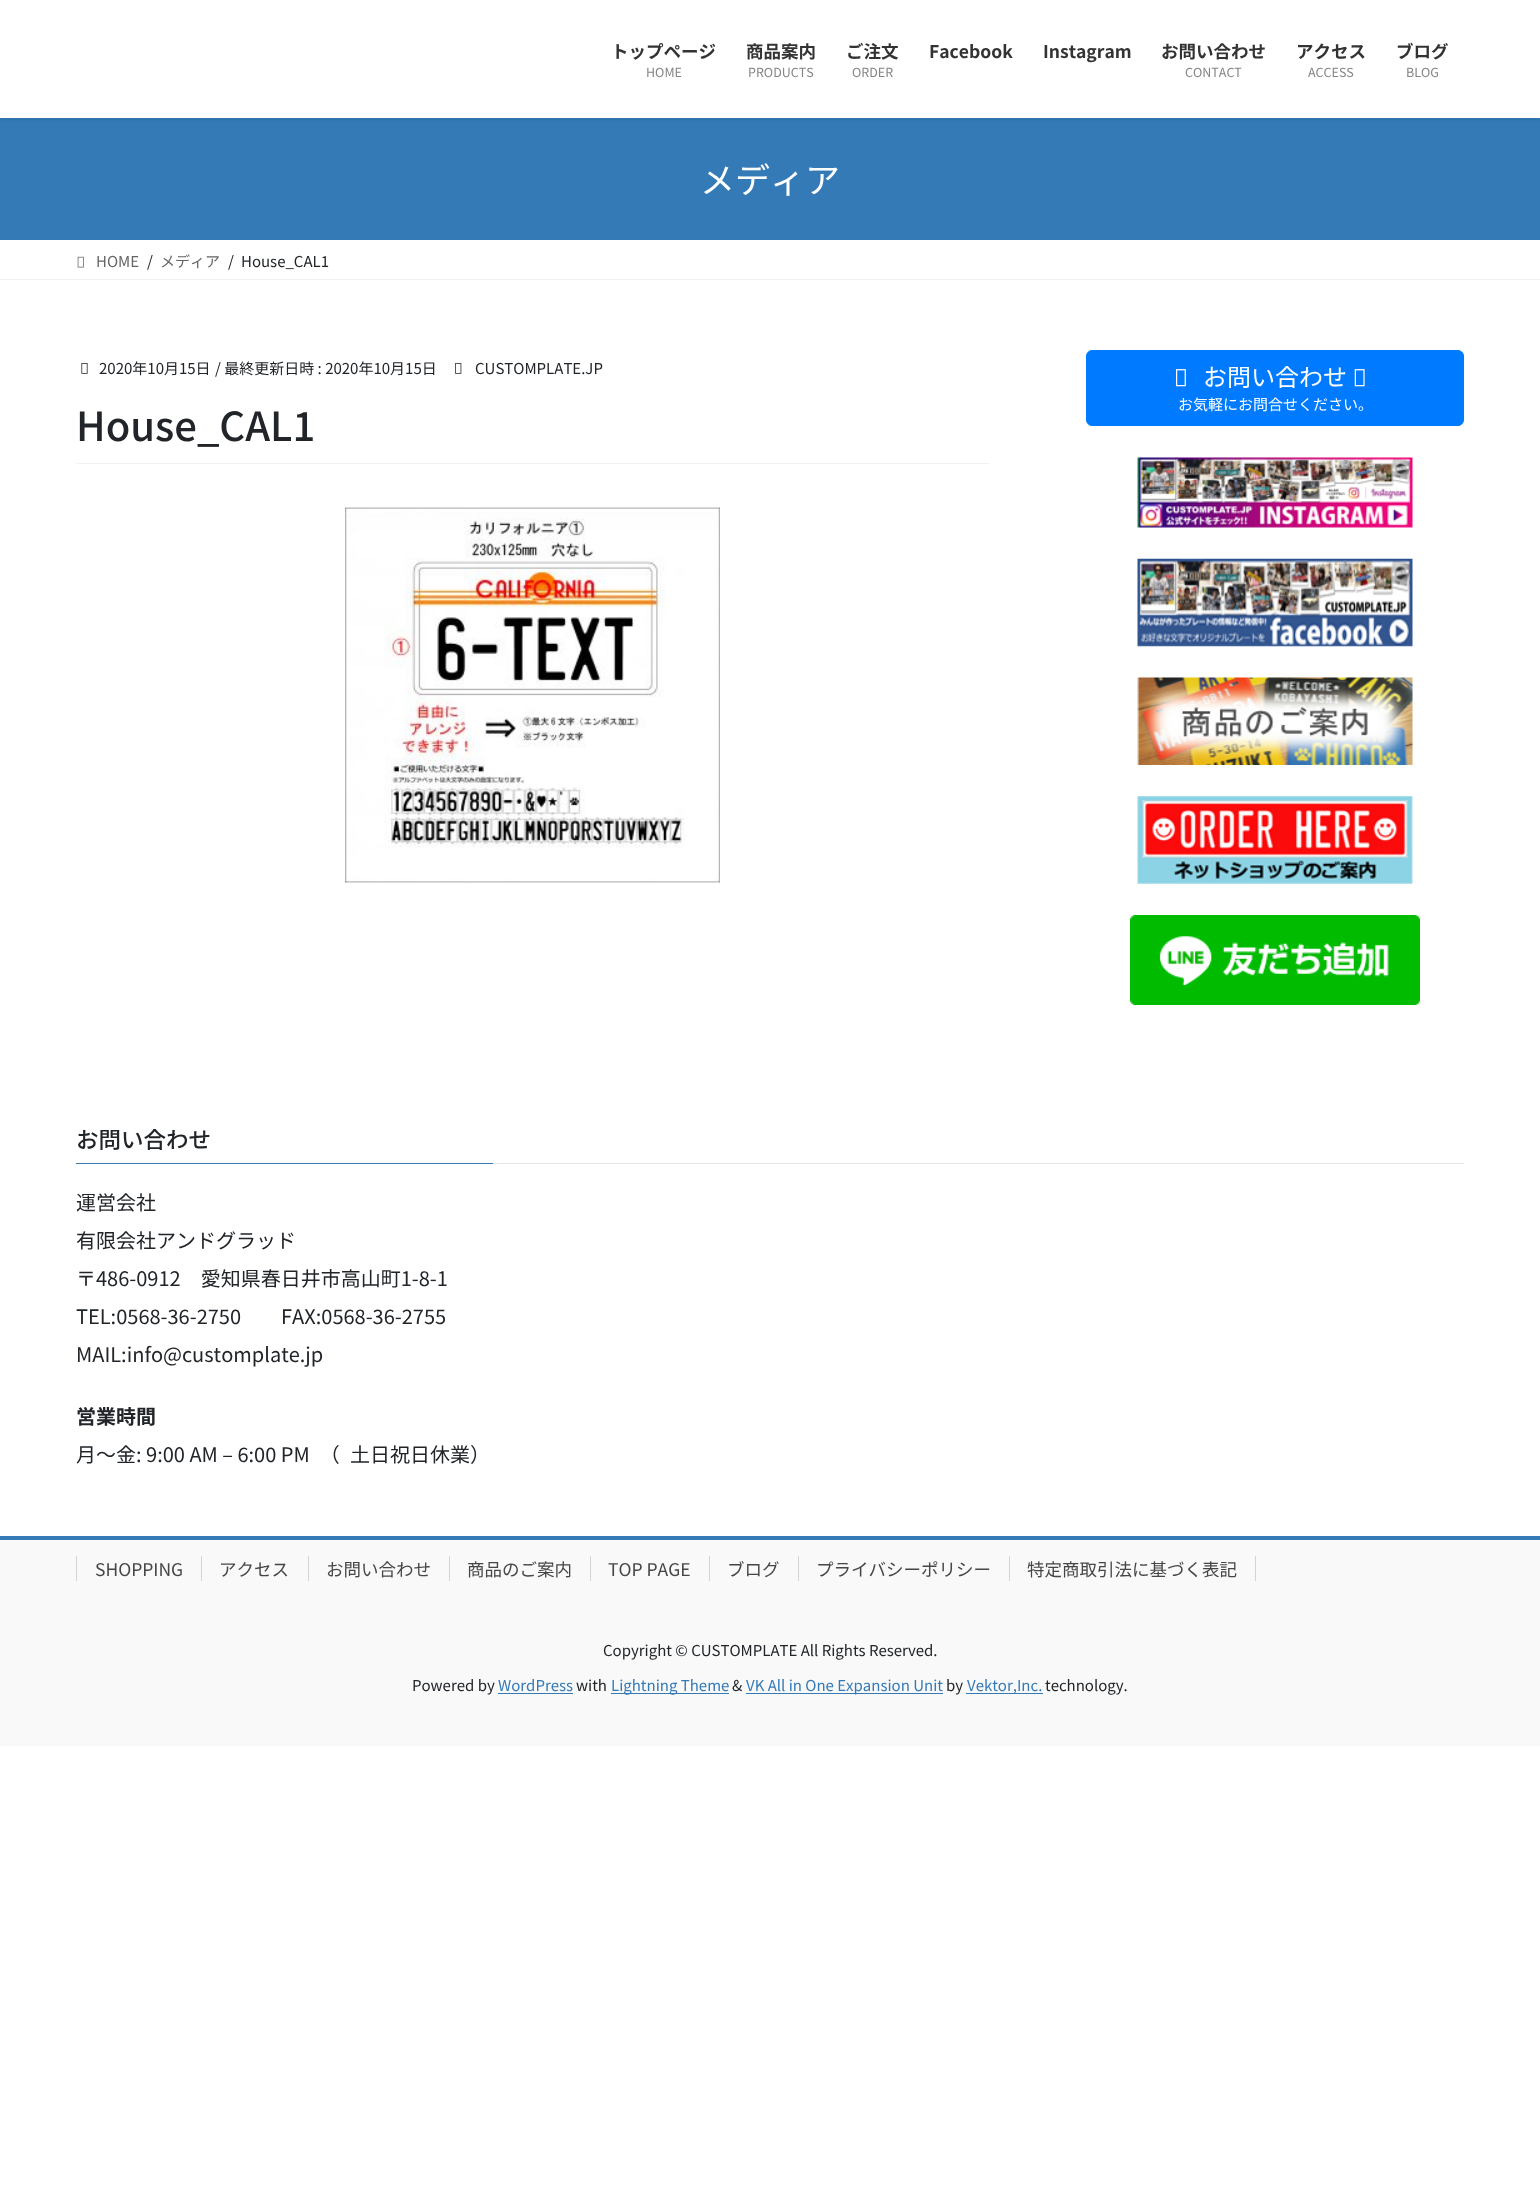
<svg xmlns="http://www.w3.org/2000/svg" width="1540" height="2194">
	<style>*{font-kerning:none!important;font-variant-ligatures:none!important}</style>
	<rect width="100%" height="100%" fill="#FFFFFF" />
	<rect x="0" y="118" width="1540" height="122" fill="#337AB7" />
	<rect x="0" y="1" width="1540" height="118" fill="#000000" fill-opacity="0.1" filter="blur(2px)" />
	<rect x="0" y="0" width="1540" height="118" fill="#FFFFFF" />
	<text x="611" y="58" font-family="Noto Sans JP" font-size="17.5" font-weight="700" fill="#333333">トップページ</text>
	<text x="646" y="77" font-family="Noto Sans JP" font-size="12.5" fill="#858585">HOME</text>
	<text x="746" y="58" font-family="Noto Sans JP" font-size="17.5" font-weight="700" fill="#333333">商品案内</text>
	<text x="748" y="77" font-family="Noto Sans JP" font-size="12.5" fill="#858585">PRODUCTS</text>
	<text x="846" y="58" font-family="Noto Sans JP" font-size="17.5" font-weight="700" fill="#333333">ご注文</text>
	<text x="852" y="77" font-family="Noto Sans JP" font-size="12.5" fill="#858585">ORDER</text>
	<g font-family="Noto Sans JP" font-size="17.5" font-weight="700" fill="#333333">
		<text x="929" y="58">Facebook</text>
		<text x="1043" y="58">Instagram</text>
		<text x="1161" y="58">お問い合わせ</text>
	</g>
	<text x="1185" y="77" font-family="Noto Sans JP" font-size="12.5" fill="#858585">CONTACT</text>
	<text x="1296" y="58" font-family="Noto Sans JP" font-size="17.5" font-weight="700" fill="#333333">アクセス</text>
	<text x="1308" y="77" font-family="Noto Sans JP" font-size="12.5" fill="#858585">ACCESS</text>
	<text x="1396" y="58" font-family="Noto Sans JP" font-size="17.5" font-weight="700" fill="#333333">ブログ</text>
	<text x="1406" y="77" font-family="Noto Sans JP" font-size="12.5" fill="#858585">BLOG</text>
	<text x="700" y="193" font-family="Noto Sans JP" font-size="35" fill="#FFFFFF">メディア</text>
	<rect x="0" y="279" width="1540" height="1" fill="#F2F2F2" />
	<image x="77" y="256" width="7" height="12" href="assets/img1.png" />
	<text x="96" y="267" font-family="Noto Sans JP" font-size="15" fill="#666666">HOME</text>
	<text x="147" y="267" font-family="Noto Sans JP" font-size="15" fill="#212529">/</text>
	<text x="160" y="267" font-family="Noto Sans JP" font-size="15" fill="#666666">メディア</text>
	<g font-family="Noto Sans JP" font-size="15" fill="#212529">
		<text x="228" y="267">/</text>
		<text x="241" y="267">House_CAL1</text>
	</g>
	<rect x="76" y="463" width="913" height="1" fill="#F2F2F2" />
	<image x="81" y="363" width="7" height="11" href="assets/img2.png" />
	<g font-family="Noto Sans JP" font-size="15" fill="#212529">
		<text x="99" y="374">2020年10月15日</text>
		<text x="215" y="374">/ 最終更新日時 : 2020年10月15日</text>
	</g>
	<image x="455" y="363" width="7" height="11" href="assets/img3.png" />
	<text x="475" y="374" font-family="Noto Sans JP" font-size="15" fill="#212529">CUSTOMPLATE.JP</text>
	<text x="76" y="441" font-family="Noto Sans JP" font-size="40" font-weight="500" fill="#212529">House_CAL1</text>
	<image x="345" y="507" width="375" height="376" href="assets/img4.png" />
	<rect x="1086.5" y="350.5" width="377" height="75" rx="5.5" fill="#007BFF" stroke="#007BFF" />
	<image x="1176" y="369" width="10" height="18" href="assets/img5.png" />
	<text x="1203" y="386" font-family="Noto Sans JP" font-size="24" fill="#FFFFFF">お問い合わせ</text>
	<image x="1354" y="369" width="11" height="18" href="assets/img6.png" />
	<text x="1178" y="410" font-family="Noto Sans JP" font-size="15" fill="#FFFFFF">お気軽にお問合せください。</text>
	<image x="1137" y="457" width="276" height="71" href="assets/img7.png" />
	<image x="1137" y="558" width="276" height="89" href="assets/img8.png" />
	<image x="1137" y="677" width="276" height="88" href="assets/img9.png" />
	<image x="1137" y="796" width="276" height="88" href="assets/img10.png" />
	<image x="1130" y="915" width="290" height="90" href="assets/img11.png" />
	<rect x="493" y="1163" width="971" height="1" fill="#E6E6E6" />
	<text x="76" y="1148" font-family="Noto Sans JP" font-size="22.5" font-weight="500" fill="#212529">お問い合わせ</text>
	<rect x="76" y="1163" width="417" height="1" fill="#337AB7" />
	<g font-family="Noto Sans JP" font-size="20" fill="#212529">
		<text x="76" y="1210">運営会社</text>
		<text x="76" y="1248">有限会社アンドグラッド</text>
		<text x="76" y="1286">〒486-0912　愛知県春日井市高山町1-8-1</text>
		<text x="76" y="1324">TEL:0568-36-2750　　FAX:0568-36-2755</text>
		<text x="76" y="1362">MAIL:info@customplate.jp</text>
	</g>
	<text x="76" y="1424" font-family="Noto Sans JP" font-size="20" font-weight="700" fill="#212529">営業時間</text>
	<text x="76" y="1462" font-family="Noto Sans JP" font-size="20" fill="#212529">月〜金: 9:00 AM – 6:00 PM　（</text>
	<text x="350" y="1462" font-family="Noto Sans JP" font-size="20" fill="#212529">土日祝日休業）</text>
	<rect x="0" y="1540" width="1540" height="206" fill="#F9F9F9" />
	<rect x="0" y="1536" width="1540" height="4" fill="#337AB7" />
	<text x="95" y="1576" font-family="Noto Sans JP" font-size="17.5" fill="#464646">SHOPPING</text>
	<rect x="76" y="1556" width="1" height="25" fill="#D4D4D4" />
	<text x="219" y="1576" font-family="Noto Sans JP" font-size="17.5" fill="#464646">アクセス</text>
	<rect x="201" y="1556" width="1" height="25" fill="#D4D4D4" />
	<text x="326" y="1576" font-family="Noto Sans JP" font-size="17.5" fill="#464646">お問い合わせ</text>
	<rect x="308" y="1556" width="1" height="25" fill="#D4D4D4" />
	<text x="467" y="1576" font-family="Noto Sans JP" font-size="17.5" fill="#464646">商品のご案内</text>
	<rect x="449" y="1556" width="1" height="25" fill="#D4D4D4" />
	<text x="608" y="1576" font-family="Noto Sans JP" font-size="17.5" fill="#464646">TOP PAGE</text>
	<rect x="590" y="1556" width="1" height="25" fill="#D4D4D4" />
	<text x="727" y="1576" font-family="Noto Sans JP" font-size="17.5" fill="#464646">ブログ</text>
	<rect x="709" y="1556" width="1" height="25" fill="#D4D4D4" />
	<text x="816" y="1576" font-family="Noto Sans JP" font-size="17.5" fill="#464646">プライバシーポリシー</text>
	<rect x="798" y="1556" width="1" height="25" fill="#D4D4D4" />
	<text x="1027" y="1576" font-family="Noto Sans JP" font-size="17.5" fill="#464646">特定商取引法に基づく表記</text>
	<rect x="1255" y="1556" width="1" height="25" fill="#D4D4D4" />
	<rect x="1009" y="1556" width="1" height="25" fill="#D4D4D4" />
	<g font-family="Noto Sans JP" font-size="15" fill="#212529">
		<text x="603" y="1656">Copyright © CUSTOMPLATE All Rights Reserved.</text>
		<text x="412" y="1691">Powered by</text>
	</g>
	<text x="498" y="1691" font-family="Noto Sans JP" font-size="15" fill="#337AB7">WordPress</text>
	<rect x="498" y="1693" width="75" height="1" fill="#337AB7" />
	<text x="576" y="1691" font-family="Noto Sans JP" font-size="15" fill="#212529">with</text>
	<rect x="611" y="1693" width="118" height="1" fill="#337AB7" />
	<text x="611" y="1691" font-family="Noto Sans JP" font-size="15" fill="#337AB7">Lightning Theme</text>
	<text x="732" y="1691" font-family="Noto Sans JP" font-size="15" fill="#212529">&amp;</text>
	<rect x="746" y="1693" width="197" height="1" fill="#337AB7" />
	<text x="746" y="1691" font-family="Noto Sans JP" font-size="15" fill="#337AB7">VK All in One Expansion Unit</text>
	<text x="946" y="1691" font-family="Noto Sans JP" font-size="15" fill="#212529">by</text>
	<rect x="966" y="1693" width="77" height="1" fill="#337AB7" />
	<text x="967" y="1691" font-family="Noto Sans JP" font-size="15" fill="#337AB7">Vektor,Inc.</text>
	<text x="1045" y="1691" font-family="Noto Sans JP" font-size="15" fill="#212529">technology.</text>
</svg>
